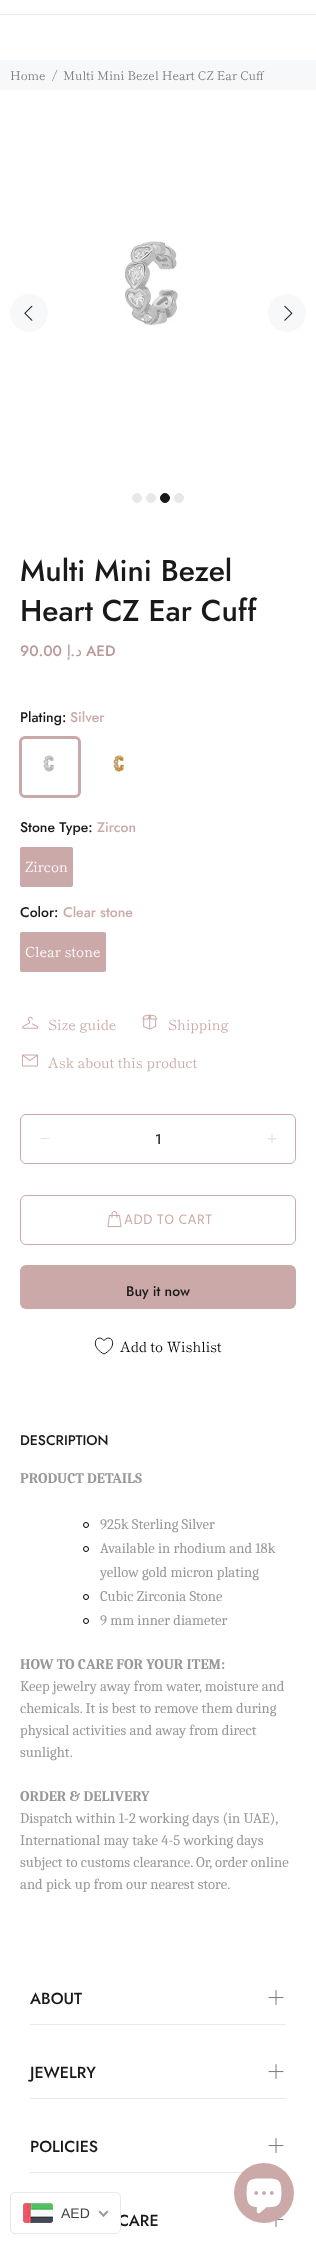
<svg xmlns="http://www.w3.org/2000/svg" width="316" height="2244">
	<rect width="100%" height="100%" fill="#FFFFFF" />
	<rect x="0" y="14" width="316" height="1" fill="#E9E7E7" />
	<rect x="0" y="60" width="316" height="30" fill="#F7F8FA" />
	<g font-family="Shippori Mincho" font-size="12" fill="#777777">
		<text x="10" y="80">Home</text>
		<text x="52" y="80">/</text>
		<text x="63" y="80">Multi Mini Bezel Heart CZ Ear Cuff</text>
	</g>
	<circle cx="29" cy="313" r="19" fill="#F7F8FA" />
	<image x="24" y="305" width="9" height="16" href="assets/img1.png" />
	<image x="124" y="241" width="54" height="85" href="assets/img2.png" />
	<circle cx="287" cy="313" r="19" fill="#F7F8FA" />
	<image x="284" y="305" width="9" height="16" href="assets/img3.png" />
	<circle cx="137" cy="498" r="4.5" fill="#E9E7E7" stroke="#E9E7E7" />
	<circle cx="151" cy="498" r="4.5" fill="#E9E7E7" stroke="#E9E7E7" />
	<circle cx="165" cy="498" r="4.5" fill="#191919" stroke="#191919" />
	<circle cx="179" cy="498" r="4.5" fill="#E9E7E7" stroke="#E9E7E7" />
	<g font-family="Jost" font-size="30" font-weight="500" fill="#191919">
		<text x="20" y="581">Multi Mini Bezel</text>
		<text x="20" y="621">Heart CZ Ear Cuff</text>
	</g>
	<text x="20" y="656" font-family="Jost" font-size="15" font-weight="500" fill="#B89898">90.00</text>
	<text x="71" y="656" font-family="DejaVu Sans" font-size="15" direction="rtl" fill="#B89898">إ</text>
	<text x="75" y="656" font-family="Jost" font-size="15" font-weight="500" direction="rtl" fill="#B89898">.</text>
	<text x="82" y="656" font-family="DejaVu Sans" font-size="15" direction="rtl" fill="#B89898">د</text>
	<text x="86" y="656" font-family="Jost" font-size="15" font-weight="500" fill="#B89898">AED</text>
	<text x="20" y="722" font-family="Jost" font-size="14" font-weight="500" fill="#191919">Plating:</text>
	<text x="70" y="722" font-family="Jost" font-size="14" font-weight="500" fill="#CCA9A9">Silver</text>
	<image x="43" y="755" width="12" height="17" href="assets/img4.png" />
	<rect x="20.5" y="737.5" width="59" height="59" rx="4.5" fill="none" stroke="#CCA9A9" stroke-width="3" />
	<image x="113" y="755" width="11" height="17" href="assets/img5.png" />
	<text x="20" y="832" font-family="Jost" font-size="14" font-weight="500" fill="#191919">Stone Type:</text>
	<text x="97" y="832" font-family="Jost" font-size="14" font-weight="500" fill="#CCA9A9">Zircon</text>
	<rect x="20" y="847" width="53" height="40" rx="2" fill="#CCA9A9" />
	<text x="25" y="872" font-family="Shippori Mincho" font-size="14" fill="#FFFFFF">Zircon</text>
	<text x="20" y="917" font-family="Jost" font-size="14" font-weight="500" fill="#191919">Color:</text>
	<text x="63" y="917" font-family="Jost" font-size="14" font-weight="500" fill="#CCA9A9">Clear stone</text>
	<rect x="20" y="932" width="86" height="40" rx="2" fill="#CCA9A9" />
	<text x="25" y="957" font-family="Shippori Mincho" font-size="14" fill="#FFFFFF">Clear stone</text>
	<image x="22" y="1016" width="17" height="13" href="assets/img6.png" />
	<text x="48" y="1030" font-family="Shippori Mincho" font-size="14" fill="#CCA9A9">Size guide</text>
	<image x="142" y="1014" width="16" height="16" href="assets/img7.png" />
	<text x="168" y="1030" font-family="Shippori Mincho" font-size="14" fill="#CCA9A9">Shipping</text>
	<image x="21" y="1054" width="17" height="13" href="assets/img8.png" />
	<text x="48" y="1068" font-family="Shippori Mincho" font-size="14" fill="#CCA9A9">Ask about this product</text>
	<rect x="20.5" y="1114.5" width="275" height="49" rx="5.5" fill="none" stroke="#CCA9A9" />
	<path d="M49.5 1138.5V1139H40.5L41 1138.5Z" fill="#D9BEBE" />
	<text x="155" y="1144" font-family="Jost" font-size="14" font-weight="500" fill="#333333">1</text>
	<image x="267" y="1134" width="10" height="10" href="assets/img9.png" />
	<rect x="20.5" y="1195.5" width="275" height="49" rx="5.5" fill="none" stroke="#CCA9A9" />
	<image x="107" y="1211" width="15" height="17" href="assets/img10.png" />
	<text x="124" y="1224" font-family="Hind" font-size="14" letter-spacing="0.5" fill="#CCA9A9">ADD TO CART</text>
	<rect x="20" y="1265" width="276" height="44" rx="6" fill="#CCA9A9" />
	<text x="126" y="1296" font-family="Jost" font-size="14" font-weight="500" fill="#191919">Buy it now</text>
	<path d="M104 1354C89 1346.5 96.5 1332.5 104 1340.5C111.5 1332.5 119 1346.5 104 1354Z" fill="none" stroke="#191919" />
	<text x="120" y="1352" font-family="Shippori Mincho" font-size="14" fill="#000000">Add to Wishlist</text>
	<text x="20" y="1445" font-family="Jost" font-size="14" font-weight="500" fill="#191919">DESCRIPTION</text>
	<text x="20" y="1483" font-family="Caladea" font-size="14.7" font-weight="700" fill="#999999">PRODUCT DETAILS</text>
	<circle cx="86" cy="1525" r="2.5" fill="none" stroke="#000000" />
	<text x="100" y="1529" font-family="Caladea" font-size="14.7" fill="#999999">925k Sterling Silver</text>
	<circle cx="86" cy="1549" r="2.5" fill="none" stroke="#000000" />
	<g font-family="Caladea" font-size="14.7" fill="#999999">
		<text x="100" y="1553">Available in rhodium and 18k</text>
		<text x="100" y="1577">yellow gold micron plating</text>
	</g>
	<circle cx="86" cy="1597" r="2.5" fill="none" stroke="#000000" />
	<text x="100" y="1601" font-family="Caladea" font-size="14.7" fill="#999999">Cubic Zirconia Stone</text>
	<circle cx="86" cy="1621" r="2.5" fill="none" stroke="#000000" />
	<text x="100" y="1625" font-family="Caladea" font-size="14.7" fill="#999999">9 mm inner diameter</text>
	<text x="20" y="1669" font-family="Caladea" font-size="14.7" font-weight="700" fill="#999999">HOW TO CARE FOR YOUR ITEM:</text>
	<g font-family="Caladea" font-size="14.7" fill="#999999">
		<text x="20" y="1691">Keep jewelry away from water, moisture and</text>
		<text x="20" y="1713">chemicals. It is best to remove them during</text>
		<text x="20" y="1735">physical activities and away from direct</text>
		<text x="20" y="1757">sunlight.</text>
	</g>
	<text x="20" y="1801" font-family="Caladea" font-size="14.7" font-weight="700" fill="#999999">ORDER &amp; DELIVERY</text>
	<g font-family="Caladea" font-size="14.7" fill="#999999">
		<text x="20" y="1823">Dispatch within 1-2 working days (in UAE),</text>
		<text x="20" y="1845">International may take 4-5 working days</text>
		<text x="20" y="1867">subject to customs clearance. Or, order online</text>
		<text x="20" y="1889">and pick up from our nearest store.</text>
	</g>
	<rect x="30" y="2024" width="256" height="1" fill="#E9E7E7" />
	<text x="30" y="2004" font-family="Jost" font-size="16" font-weight="500" fill="#191919">ABOUT</text>
	<image x="268" y="1990" width="16" height="15" href="assets/img11.png" />
	<rect x="30" y="2098" width="256" height="1" fill="#E9E7E7" />
	<text x="30" y="2078" font-family="Jost" font-size="16" font-weight="500" fill="#191919">JEWELRY</text>
	<image x="268" y="2064" width="16" height="15" href="assets/img11.png" />
	<rect x="30" y="2172" width="256" height="1" fill="#E9E7E7" />
	<text x="30" y="2152" font-family="Jost" font-size="16" font-weight="500" fill="#191919">POLICIES</text>
	<image x="268" y="2138" width="16" height="15" href="assets/img11.png" />
	<text x="118" y="2226" font-family="Jost" font-size="16" font-weight="500" fill="#191919">CARE</text>
	<image x="274" y="2219" width="10" height="8" href="assets/img12.png" />
	<circle cx="264" cy="2193" r="30" fill="#CCA9A9" />
	<image x="246" y="2178" width="36" height="36" href="assets/img13.png" />
	<rect x="10.5" y="2192.5" width="110" height="41" rx="4.5" fill="#FFFFFF" stroke="#E8E8E8" />
	<image x="23" y="2203" width="30" height="20" href="assets/img14.png" />
	<text x="61" y="2218" font-family="Liberation Sans" font-size="14" fill="#403F3F">AED</text>
	<path d="M107 2210.5L108.5 2212L103.5 2217L102 2215.5Z" fill="#999999" />
	<path d="M100 2210.5L104.5 2215.5L103.5 2217L98.5 2212Z" fill="#999999" />
</svg>
